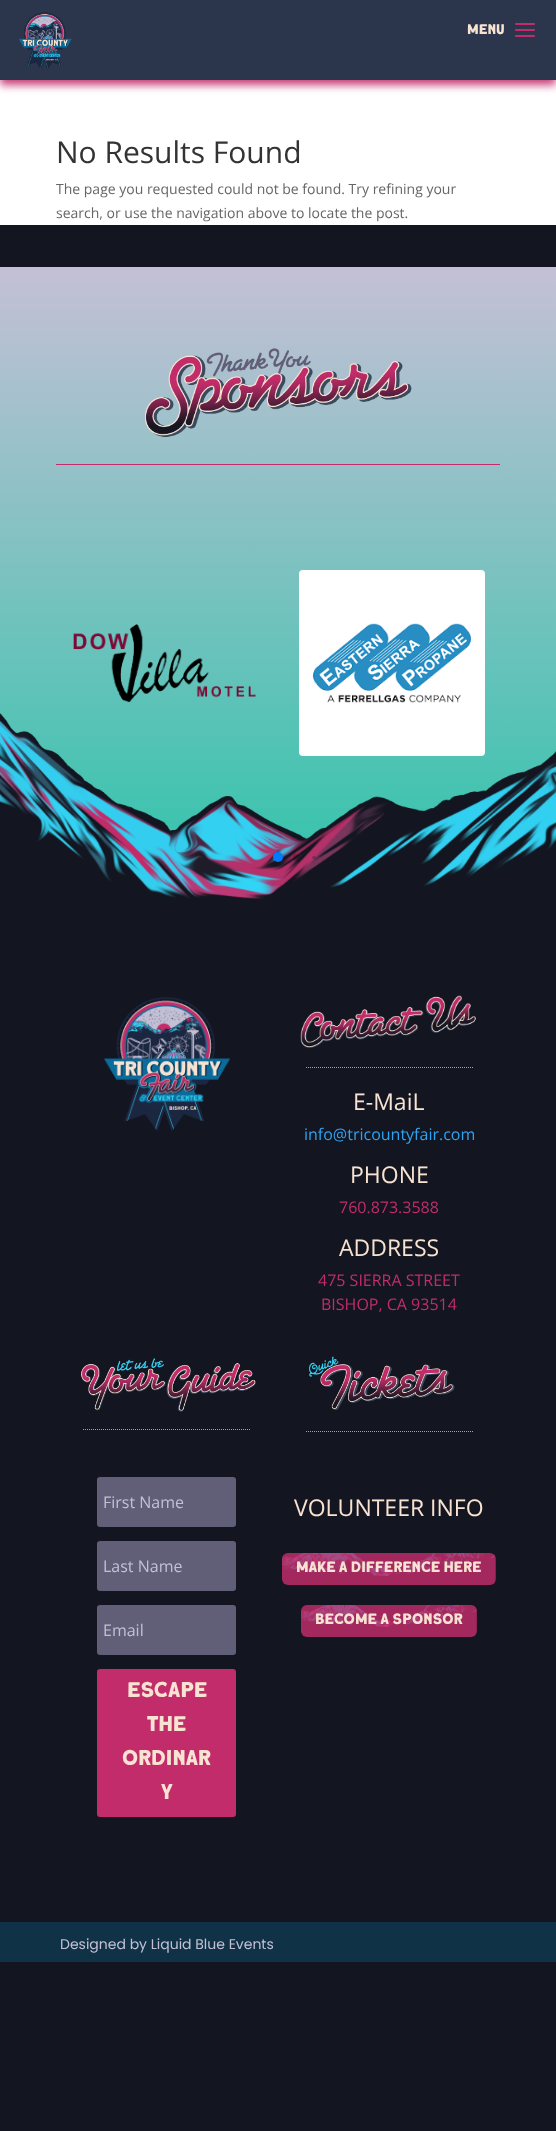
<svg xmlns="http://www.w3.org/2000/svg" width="556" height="2131">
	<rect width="100%" height="100%" fill="#131620" />
	<rect x="0" y="80" width="556" height="145" fill="#FFFFFF" />
	<rect x="0" y="5" width="556" height="80" fill="#C22C6B" fill-opacity="0.92" filter="blur(4.5px)" />
	<rect x="0" y="0" width="556" height="80" fill="#2B364D" />
	<text x="467" y="34" font-family="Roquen" font-size="13" fill="#F8E3D2">MENU</text>
	<rect x="515" y="29" width="20" height="2" rx="1" fill="#C22C6B" />
	<rect x="515" y="23" width="20" height="2" rx="1" fill="#C22C6B" />
	<rect x="515" y="35" width="20" height="2" rx="1" fill="#C22C6B" />
	<image x="18" y="12" width="54" height="58" href="assets/img1.png" />
	<text x="56" y="163" font-family="Open Sans" font-size="30" fill="#333333">No Results Found</text>
	<g font-family="Open Sans" font-size="14" fill="#666666">
		<text x="56" y="194">The page you requested could not be found. Try refining your</text>
		<text x="56" y="218">search, or use the navigation above to locate the post.</text>
	</g>
	<image x="0" y="267" width="556" height="648" href="assets/img2.png" />
	<image x="145" y="348" width="267" height="89" href="assets/img3.png" />
	<rect x="56" y="464" width="444" height="1" fill="#C22C6B" />
	<image x="73" y="624" width="184" height="79" href="assets/img4.png" />
	<image x="299" y="570" width="186" height="186" href="assets/img5.png" />
	<circle cx="278" cy="857" r="5" fill="#007AFF" />
	<rect x="293" y="854" width="6" height="7" rx="3" fill="#000000" fill-opacity="0.2" />
	<rect x="312" y="856" width="4" height="3" rx="1.5" fill="#000000" fill-opacity="0.2" />
	<image x="104" y="997" width="126" height="135" href="assets/img6.png" />
	<image x="300" y="995" width="176" height="53" href="assets/img7.png" />
	<path d="M306 1067.5H473" fill="none" stroke="#33CEEF" stroke-dasharray="1 1" />
	<text x="353" y="1110" font-family="Open Sans" font-size="23" fill="#F8E3D2">E-MaiL</text>
	<text x="304" y="1140" font-family="Open Sans" font-size="16" fill="#2EA3F2">info@tricountyfair.com</text>
	<text x="350" y="1183" font-family="Open Sans" font-size="23" fill="#F8E3D2">PHONE</text>
	<text x="339" y="1213" font-family="Open Sans" font-size="16" fill="#C22C6B">760.873.3588</text>
	<text x="339" y="1256" font-family="Open Sans" font-size="23" fill="#F8E3D2">ADDRESS</text>
	<g font-family="Open Sans" font-size="16" fill="#C22C6B">
		<text x="318" y="1286">475 SIERRA STREET</text>
		<text x="321" y="1310">BISHOP, CA 93514</text>
	</g>
	<image x="81" y="1358" width="175" height="54" href="assets/img8.png" />
	<path d="M83 1429.5H250" fill="none" stroke="#33CEEF" stroke-dasharray="1 1" />
	<rect x="97" y="1477" width="139" height="50" rx="3" fill="#615E77" />
	<text x="103" y="1508" font-family="Open Sans" font-size="16" fill="#C3C0D5">First Name</text>
	<rect x="97" y="1541" width="139" height="50" rx="3" fill="#615E77" />
	<text x="103" y="1572" font-family="Open Sans" font-size="16" fill="#C3C0D5">Last Name</text>
	<rect x="97" y="1605" width="139" height="50" rx="3" fill="#615E77" />
	<text x="103" y="1636" font-family="Open Sans" font-size="16" fill="#C3C0D5">Email</text>
	<rect x="97" y="1669" width="139" height="148" rx="3" fill="#C22C6B" />
	<g font-family="Roquen" font-size="20" fill="#F8E3D2">
		<text x="127" y="1697">ESCAPE</text>
		<text x="147" y="1731">THE</text>
		<text x="122" y="1765">ORDINAR</text>
		<text x="161" y="1799">Y</text>
	</g>
	<image x="309" y="1356" width="146" height="54" href="assets/img9.png" />
	<path d="M306 1431.5H473" fill="none" stroke="#33CEEF" stroke-dasharray="1 1" />
	<text x="294" y="1516" font-family="Open Sans" font-size="23" fill="#F8E3D2">VOLUNTEER INFO</text>
	<image x="282" y="1553" width="214" height="32" href="assets/img10.png" />
	<text x="296" y="1572" font-family="Roquen" font-size="14" fill="#F8E3D2">MAKE A DIFFERENCE HERE</text>
	<image x="301" y="1605" width="176" height="32" href="assets/img11.png" />
	<text x="315" y="1624" font-family="Roquen" font-size="14" fill="#F8E3D2">Become A sponsor</text>
	<rect x="0" y="1922" width="556" height="40" fill="#103247" />
	<text x="60" y="1949" font-family="Poppins" font-size="14" fill="#C3C0D5">Designed by Liquid Blue Events</text>
</svg>
